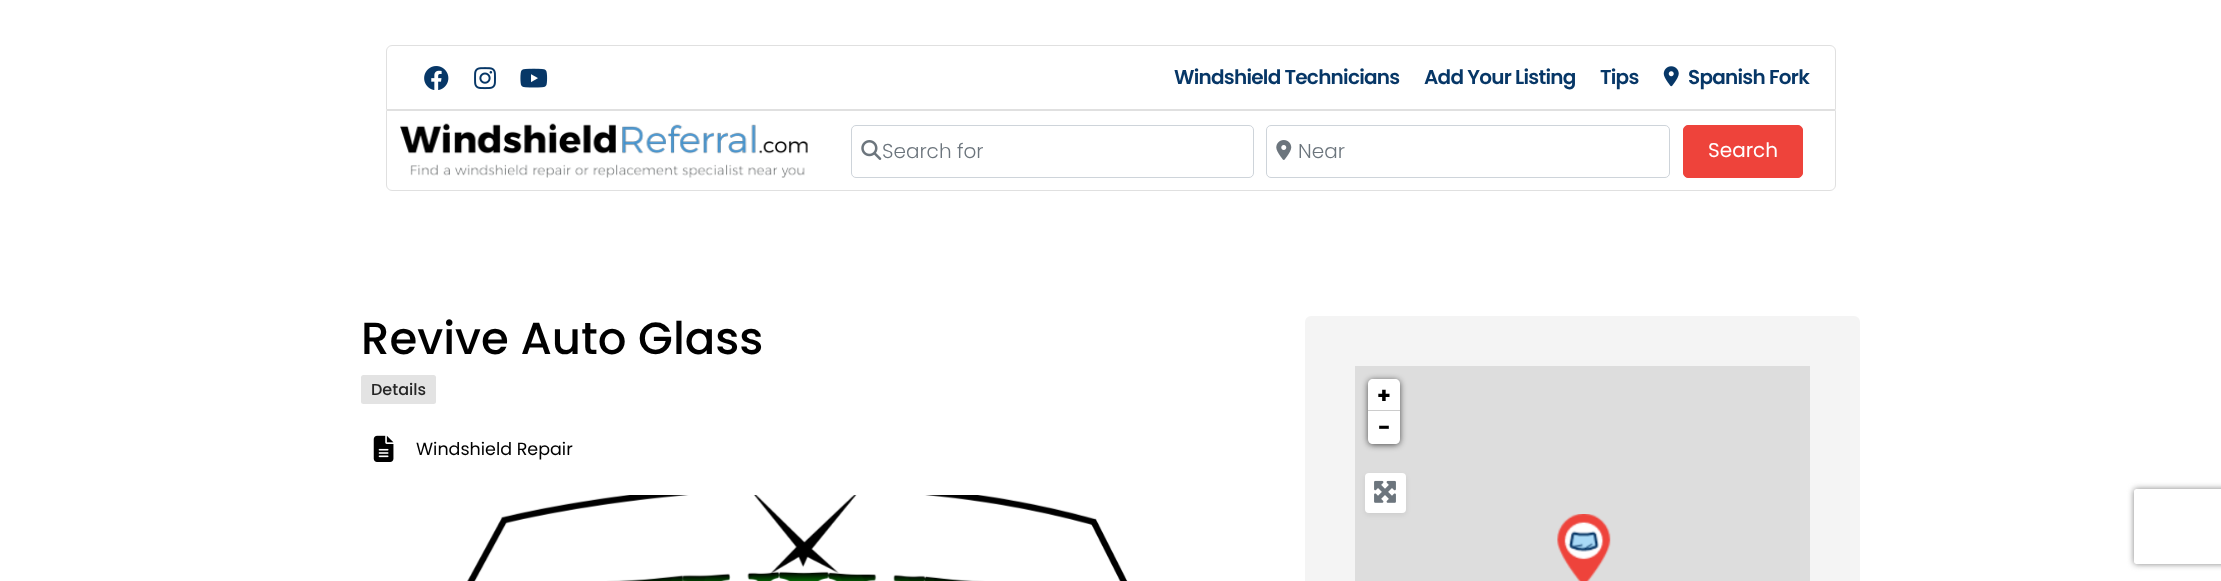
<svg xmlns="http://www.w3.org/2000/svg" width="2221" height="581">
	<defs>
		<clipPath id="clip1"><path d="M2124 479H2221V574H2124ZM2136.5 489H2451.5C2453 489 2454 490 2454 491.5V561.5C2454 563 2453 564 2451.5 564H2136.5C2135 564 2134 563 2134 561.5V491.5C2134 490 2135 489 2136.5 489Z" clip-rule="evenodd" /></clipPath>
	</defs>
	<rect width="100%" height="100%" fill="#FFFFFF" />
	<path d="M392 45.5H1830C1833 45.5 1835.5 48 1835.5 51V109.5H386.5V51C386.5 48 389 45.5 392 45.5Z" fill="none" stroke="#E0E0E0" />
	<image x="424" y="66" width="25" height="24" href="assets/img1.png" />
	<image x="474" y="67" width="22" height="23" href="assets/img2.png" />
	<image x="520" y="68" width="28" height="20" href="assets/img3.png" />
	<g font-family="Poppins" font-size="20" font-weight="600" letter-spacing="-0.75" fill="#073767">
		<text x="1174" y="84">Windshield Technicians</text>
		<text x="1424" y="84">Add Your Listing</text>
		<text x="1600" y="84">Tips</text>
	</g>
	<image x="1663" y="66" width="16" height="21" href="assets/img4.png" />
	<text x="1688" y="84" font-family="Poppins" font-size="20" font-weight="600" letter-spacing="-0.75" fill="#073767">Spanish Fork</text>
	<path d="M386.5 110.5H1835.5V185C1835.5 188 1833 190.5 1830 190.5H392C389 190.5 386.5 188 386.5 185Z" fill="none" stroke="#E0E0E0" />
	<image x="400" y="123" width="408" height="55" href="assets/img5.png" />
	<rect x="851.5" y="125.5" width="402" height="52" rx="4.5" fill="none" stroke="#CED4DA" />
	<image x="861" y="140" width="21" height="20" href="assets/img6.png" />
	<text x="882" y="158" font-family="Poppins" font-size="20" font-weight="300" fill="#6C757D">Search for</text>
	<rect x="1266.5" y="125.5" width="403" height="52" rx="4.5" fill="none" stroke="#CED4DA" />
	<image x="1276" y="140" width="16" height="20" href="assets/img7.png" />
	<text x="1298" y="158" font-family="Poppins" font-size="20" font-weight="300" fill="#6C757D">Near</text>
	<rect x="1683.5" y="125.5" width="119" height="52" rx="4.5" fill="#EE433B" stroke="#EE433B" />
	<text x="1708" y="157" font-family="Poppins" font-size="20" fill="#FFFFFF">Search</text>
	<text x="361" y="354" font-family="Poppins" font-size="45" font-weight="500" fill="#000000">Revive Auto Glass</text>
	<rect x="361" y="375" width="75" height="29" rx="2.5" fill="#E3E3E3" />
	<text x="371" y="395" font-family="Poppins" font-size="16" font-weight="500" fill="#252525">Details</text>
	<image x="373" y="435" width="21" height="27" href="assets/img8.png" />
	<text x="416" y="455" font-family="Poppins" font-size="17.5" fill="#000000">Windshield Repair</text>
	<image x="467" y="495" width="661" height="86" href="assets/img9.png" />
	<rect x="1305" y="316" width="555" height="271" rx="6" fill="#F4F4F4" />
	<rect x="1355" y="366" width="455" height="215" fill="#DDDDDD" />
	<rect x="1368" y="380" width="32" height="65" rx="5" fill="#000000" fill-opacity="0.65" filter="blur(3px)" />
	<path d="M1373 379H1395C1398 379 1400 381 1400 384V411H1368V384C1368 381 1370 379 1373 379Z" fill="#FFFFFF" />
	<rect x="1368" y="410" width="32" height="1" fill="#CCCCCC" />
	<text x="1377" y="403" font-family="Poppins" font-size="22" font-weight="700" fill="#000000">+</text>
	<path d="M1368 411H1400V439C1400 442 1398 444 1395 444H1373C1370 444 1368 442 1368 439Z" fill="#FFFFFF" />
	<text x="1378" y="435" font-family="Poppins" font-size="22" font-weight="700" fill="#000000">−</text>
	<image x="1557" y="514" width="54" height="67" href="assets/img10.png" />
	<rect x="1365" y="475" width="41" height="40" rx="4" fill="#000000" fill-opacity="0.07" filter="blur(2.5px)" />
	<rect x="1365" y="473" width="41" height="40" rx="4" fill="#FFFFFF" />
	<image x="1374" y="480" width="22" height="23" href="assets/img11.png" />
	<g clip-path="url(#clip1)">
		<rect x="2134" y="489" width="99" height="75" rx="2.5" fill="#808080" filter="blur(3px)" />
	</g>
</svg>
